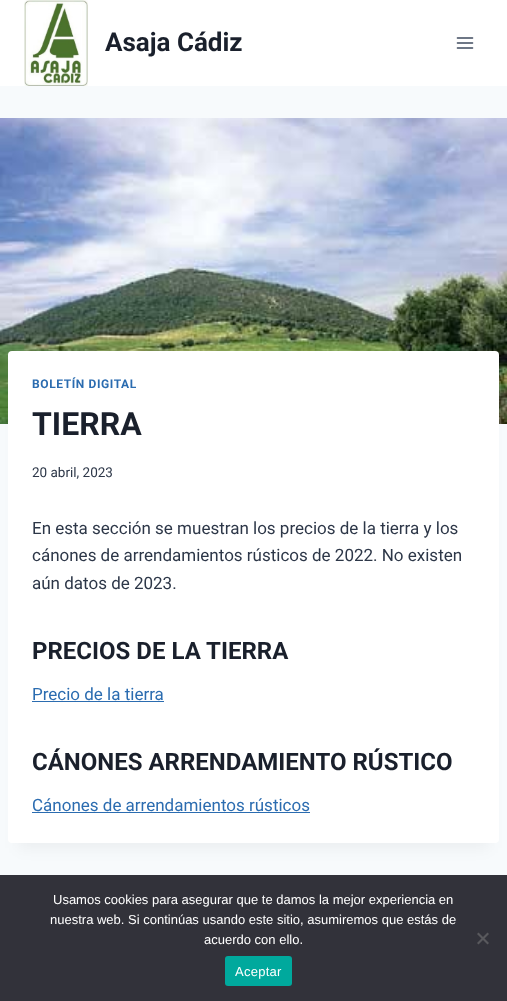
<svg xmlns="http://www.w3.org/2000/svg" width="507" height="1001">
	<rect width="100%" height="100%" fill="#F7FAFC" />
	<rect x="0" y="0" width="507" height="86" fill="#FFFFFF" />
	<image x="24" y="0" width="64" height="86" href="assets/img1.png" />
	<text x="105" y="51" font-family="Roboto" font-size="26" font-weight="700" fill="#1A202C">Asaja Cádiz</text>
	<image x="456" y="37" width="18" height="12" href="assets/img2.png" />
	<image x="0" y="118" width="507" height="306" href="assets/img3.png" />
	<rect x="18" y="376" width="471" height="472" fill="#000000" fill-opacity="0.05" filter="blur(7.5px)" />
	<rect x="8" y="351" width="491" height="492" rx="4" fill="#FFFFFF" />
	<text x="32" y="388" font-family="Roboto" font-size="12" font-weight="700" letter-spacing="0.6" fill="#2B6CB0">BOLETÍN DIGITAL</text>
	<text x="32" y="435" font-family="Roboto" font-size="32" font-weight="700" fill="#1A202C">TIERRA</text>
	<text x="32" y="477" font-family="Roboto" font-size="13.5" fill="#2D3748">20 abril, 2023</text>
	<g font-family="Roboto" font-size="17" fill="#2D3748">
		<text x="32" y="534">En esta sección se muestran los precios de la tierra y los</text>
		<text x="32" y="561">cánones de arrendamientos rústicos de 2022. No existen</text>
		<text x="32" y="589">aún datos de 2023.</text>
	</g>
	<text x="32" y="659" font-family="Roboto" font-size="24" font-weight="700" fill="#1A202C">PRECIOS DE LA TIERRA</text>
	<text x="32" y="700" font-family="Roboto" font-size="17" fill="#2B6CB0">Precio de la tierra</text>
	<rect x="32" y="701" width="132" height="1" fill="#2B6CB0" />
	<text x="32" y="770" font-family="Roboto" font-size="24" font-weight="700" fill="#1A202C">CÁNONES ARRENDAMIENTO RÚSTICO</text>
	<text x="32" y="811" font-family="Roboto" font-size="17" fill="#2B6CB0">Cánones de arrendamientos rústicos</text>
	<rect x="32" y="812" width="278" height="1" fill="#2B6CB0" />
	<rect x="0" y="875" width="507" height="126" fill="#32323A" />
	<g font-family="Liberation Sans" font-size="13" fill="#FFFFFF">
		<text x="53" y="904">Usamos cookies para asegurar que te damos la mejor experiencia en</text>
		<text x="50" y="924">nuestra web. Si continúas usando este sitio, asumiremos que estás de</text>
		<text x="204" y="944">acuerdo con ello.</text>
	</g>
	<path d="M487.5 932.5L489 934L478.5 944.5L477 943Z" fill="#59595D" />
	<path d="M477 934L478.5 932.5L489 943L487.5 944.5Z" fill="#59595D" />
	<rect x="225" y="956" width="67" height="30" rx="3" fill="#00A99D" />
	<text x="235" y="976" font-family="Liberation Sans" font-size="13" letter-spacing="0.25" fill="#FFFFFF">Aceptar</text>
</svg>
